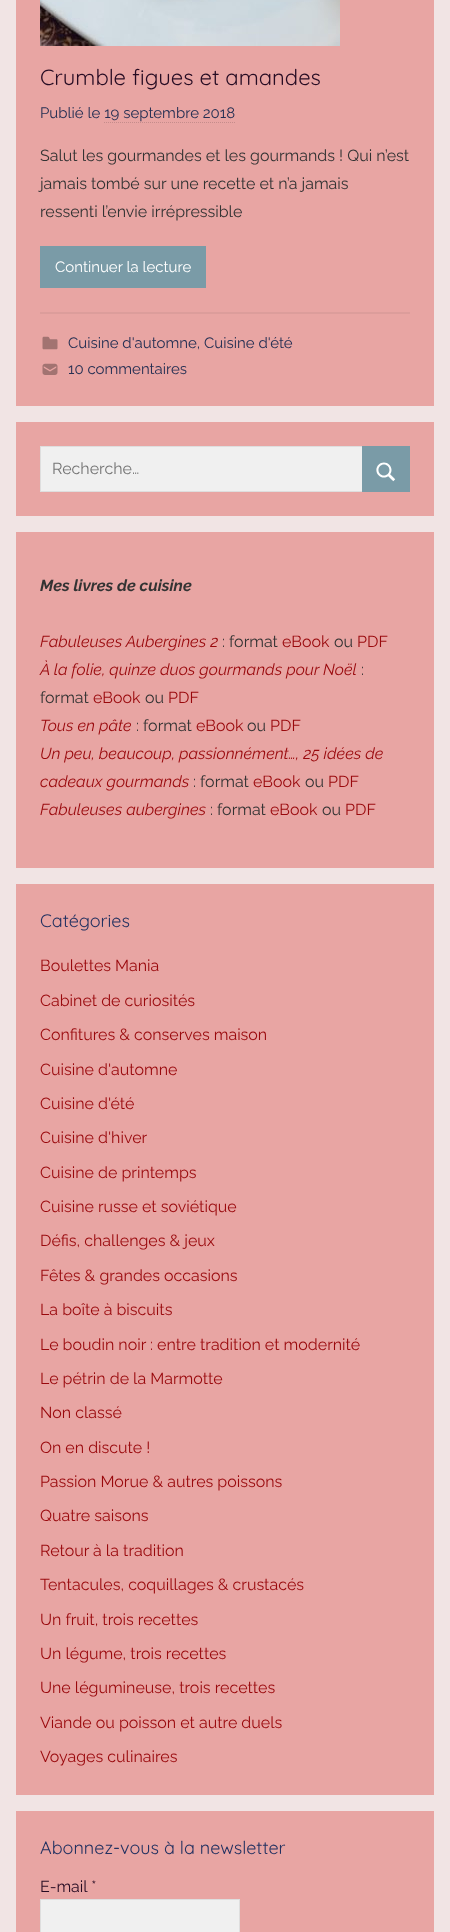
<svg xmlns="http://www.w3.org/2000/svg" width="450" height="1932">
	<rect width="100%" height="100%" fill="#F1E4E4" />
	<rect x="16" y="0" width="418" height="406" fill="#E8A5A3" />
	<image x="40" y="0" width="300" height="46" href="assets/img1.png" />
	<text x="40" y="85" font-family="Quicksand" font-size="22" fill="#270C23">Crumble figues et amandes</text>
	<text x="40" y="118" font-family="Raleway" font-size="15" fill="#242F53">Publié le 19 septembre 2018</text>
	<path d="M104 122.5H235" fill="none" stroke="#C58C8B" stroke-dasharray="1 1" />
	<g font-family="Raleway" font-size="16" fill="#333333">
		<text x="40" y="161">Salut les gourmandes et les gourmands ! Qui n’est</text>
		<text x="40" y="189">jamais tombé sur une recette et n’a jamais</text>
		<text x="40" y="217">ressenti l’envie irrépressible</text>
	</g>
	<rect x="40" y="246" width="166" height="42" fill="#7A9BA7" />
	<text x="55" y="272" font-family="Raleway" font-size="15" fill="#FFFFFF">Continuer la lecture</text>
	<rect x="40" y="312" width="370" height="2" fill="#DC9D9B" />
	<image x="42" y="336" width="16" height="14" href="assets/img2.png" />
	<text x="68" y="348" font-family="Raleway" font-size="15" fill="#242F53">Cuisine d'automne, Cuisine d'été</text>
	<image x="42" y="363" width="16" height="12" href="assets/img3.png" />
	<text x="68" y="374" font-family="Raleway" font-size="15" fill="#242F53">10 commentaires</text>
	<rect x="16" y="422" width="418" height="94" fill="#E8A5A3" />
	<rect x="41" y="447" width="321" height="44" fill="#F0F0F0" />
	<rect x="40.5" y="446.5" width="369" height="45" fill="none" stroke="#DEDEDE" />
	<text x="52" y="474" font-family="Raleway" font-size="16" fill="#757575">Recherche…</text>
	<rect x="362" y="446" width="48" height="46" fill="#7A9BA7" />
	<image x="376" y="462" width="20" height="20" href="assets/img4.png" />
	<rect x="16" y="532" width="418" height="336" fill="#E8A5A3" />
	<text x="40" y="591" font-family="Raleway" font-size="16" font-weight="700" font-style="italic" fill="#333333">Mes livres de cuisine</text>
	<text x="40" y="647" font-family="Raleway" font-size="16" font-style="italic" fill="#99080C">Fabuleuses Aubergines 2</text>
	<text x="222" y="647" font-family="Raleway" font-size="16" fill="#333333">: format</text>
	<text x="282" y="647" font-family="Raleway" font-size="16" fill="#99080C">eBook</text>
	<text x="334" y="647" font-family="Raleway" font-size="16" fill="#333333">ou</text>
	<text x="357" y="647" font-family="Raleway" font-size="16" fill="#99080C">PDF</text>
	<text x="40" y="675" font-family="Raleway" font-size="16" font-style="italic" fill="#99080C">À la folie, quinze duos gourmands pour Noël</text>
	<g font-family="Raleway" font-size="16" fill="#333333">
		<text x="361" y="675">:</text>
		<text x="40" y="703">format</text>
	</g>
	<text x="93" y="703" font-family="Raleway" font-size="16" fill="#99080C">eBook</text>
	<text x="145" y="703" font-family="Raleway" font-size="16" fill="#333333">ou</text>
	<text x="168" y="703" font-family="Raleway" font-size="16" fill="#99080C">PDF</text>
	<text x="40" y="731" font-family="Raleway" font-size="16" font-style="italic" fill="#99080C">Tous en pâte</text>
	<text x="136" y="731" font-family="Raleway" font-size="16" fill="#333333">: format</text>
	<text x="196" y="731" font-family="Raleway" font-size="16" fill="#99080C">eBook</text>
	<text x="247" y="731" font-family="Raleway" font-size="16" fill="#333333">ou</text>
	<text x="270" y="731" font-family="Raleway" font-size="16" fill="#99080C">PDF</text>
	<g font-family="Raleway" font-size="16" font-style="italic" fill="#99080C">
		<text x="40" y="759">Un peu, beaucoup, passionnément…, 25 idées de</text>
		<text x="40" y="787">cadeaux gourmands</text>
	</g>
	<text x="193" y="787" font-family="Raleway" font-size="16" fill="#333333">: format</text>
	<text x="253" y="787" font-family="Raleway" font-size="16" fill="#99080C">eBook</text>
	<text x="305" y="787" font-family="Raleway" font-size="16" fill="#333333">ou</text>
	<text x="328" y="787" font-family="Raleway" font-size="16" fill="#99080C">PDF</text>
	<text x="40" y="815" font-family="Raleway" font-size="16" font-style="italic" fill="#99080C">Fabuleuses aubergines</text>
	<text x="210" y="815" font-family="Raleway" font-size="16" fill="#333333">: format</text>
	<text x="270" y="815" font-family="Raleway" font-size="16" fill="#99080C">eBook</text>
	<text x="322" y="815" font-family="Raleway" font-size="16" fill="#333333">ou</text>
	<text x="345" y="815" font-family="Raleway" font-size="16" fill="#99080C">PDF</text>
	<rect x="16" y="884" width="418" height="911" fill="#E8A5A3" />
	<text x="40" y="927" font-family="Quicksand" font-size="18" fill="#223161">Catégories</text>
	<g font-family="Raleway" font-size="16" fill="#99080C">
		<text x="40" y="971">Boulettes Mania</text>
		<text x="40" y="1006">Cabinet de curiosités</text>
		<text x="40" y="1040">Confitures &amp; conserves maison</text>
		<text x="40" y="1075">Cuisine d'automne</text>
		<text x="40" y="1109">Cuisine d'été</text>
		<text x="40" y="1143">Cuisine d'hiver</text>
		<text x="40" y="1178">Cuisine de printemps</text>
		<text x="40" y="1212">Cuisine russe et soviétique</text>
		<text x="40" y="1246">Défis, challenges &amp; jeux</text>
		<text x="40" y="1281">Fêtes &amp; grandes occasions</text>
		<text x="40" y="1315">La boîte à biscuits</text>
		<text x="40" y="1350">Le boudin noir : entre tradition et modernité</text>
		<text x="40" y="1384">Le pétrin de la Marmotte</text>
		<text x="40" y="1418">Non classé</text>
		<text x="40" y="1453">On en discute !</text>
		<text x="40" y="1487">Passion Morue &amp; autres poissons</text>
		<text x="40" y="1521">Quatre saisons</text>
		<text x="40" y="1556">Retour à la tradition</text>
		<text x="40" y="1590">Tentacules, coquillages &amp; crustacés</text>
		<text x="40" y="1625">Un fruit, trois recettes</text>
		<text x="40" y="1659">Un légume, trois recettes</text>
		<text x="40" y="1693">Une légumineuse, trois recettes</text>
		<text x="40" y="1728">Viande ou poisson et autre duels</text>
		<text x="40" y="1762">Voyages culinaires</text>
	</g>
	<rect x="16" y="1811" width="418" height="121" fill="#E8A5A3" />
	<text x="40" y="1854" font-family="Quicksand" font-size="18" fill="#223161">Abonnez-vous à la newsletter</text>
	<text x="40" y="1892" font-family="Raleway" font-size="16" fill="#270C23">E-mail *</text>
	<rect x="40.5" y="1899.5" width="199" height="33" fill="#F0F0F0" stroke="#DEDEDE" />
</svg>
